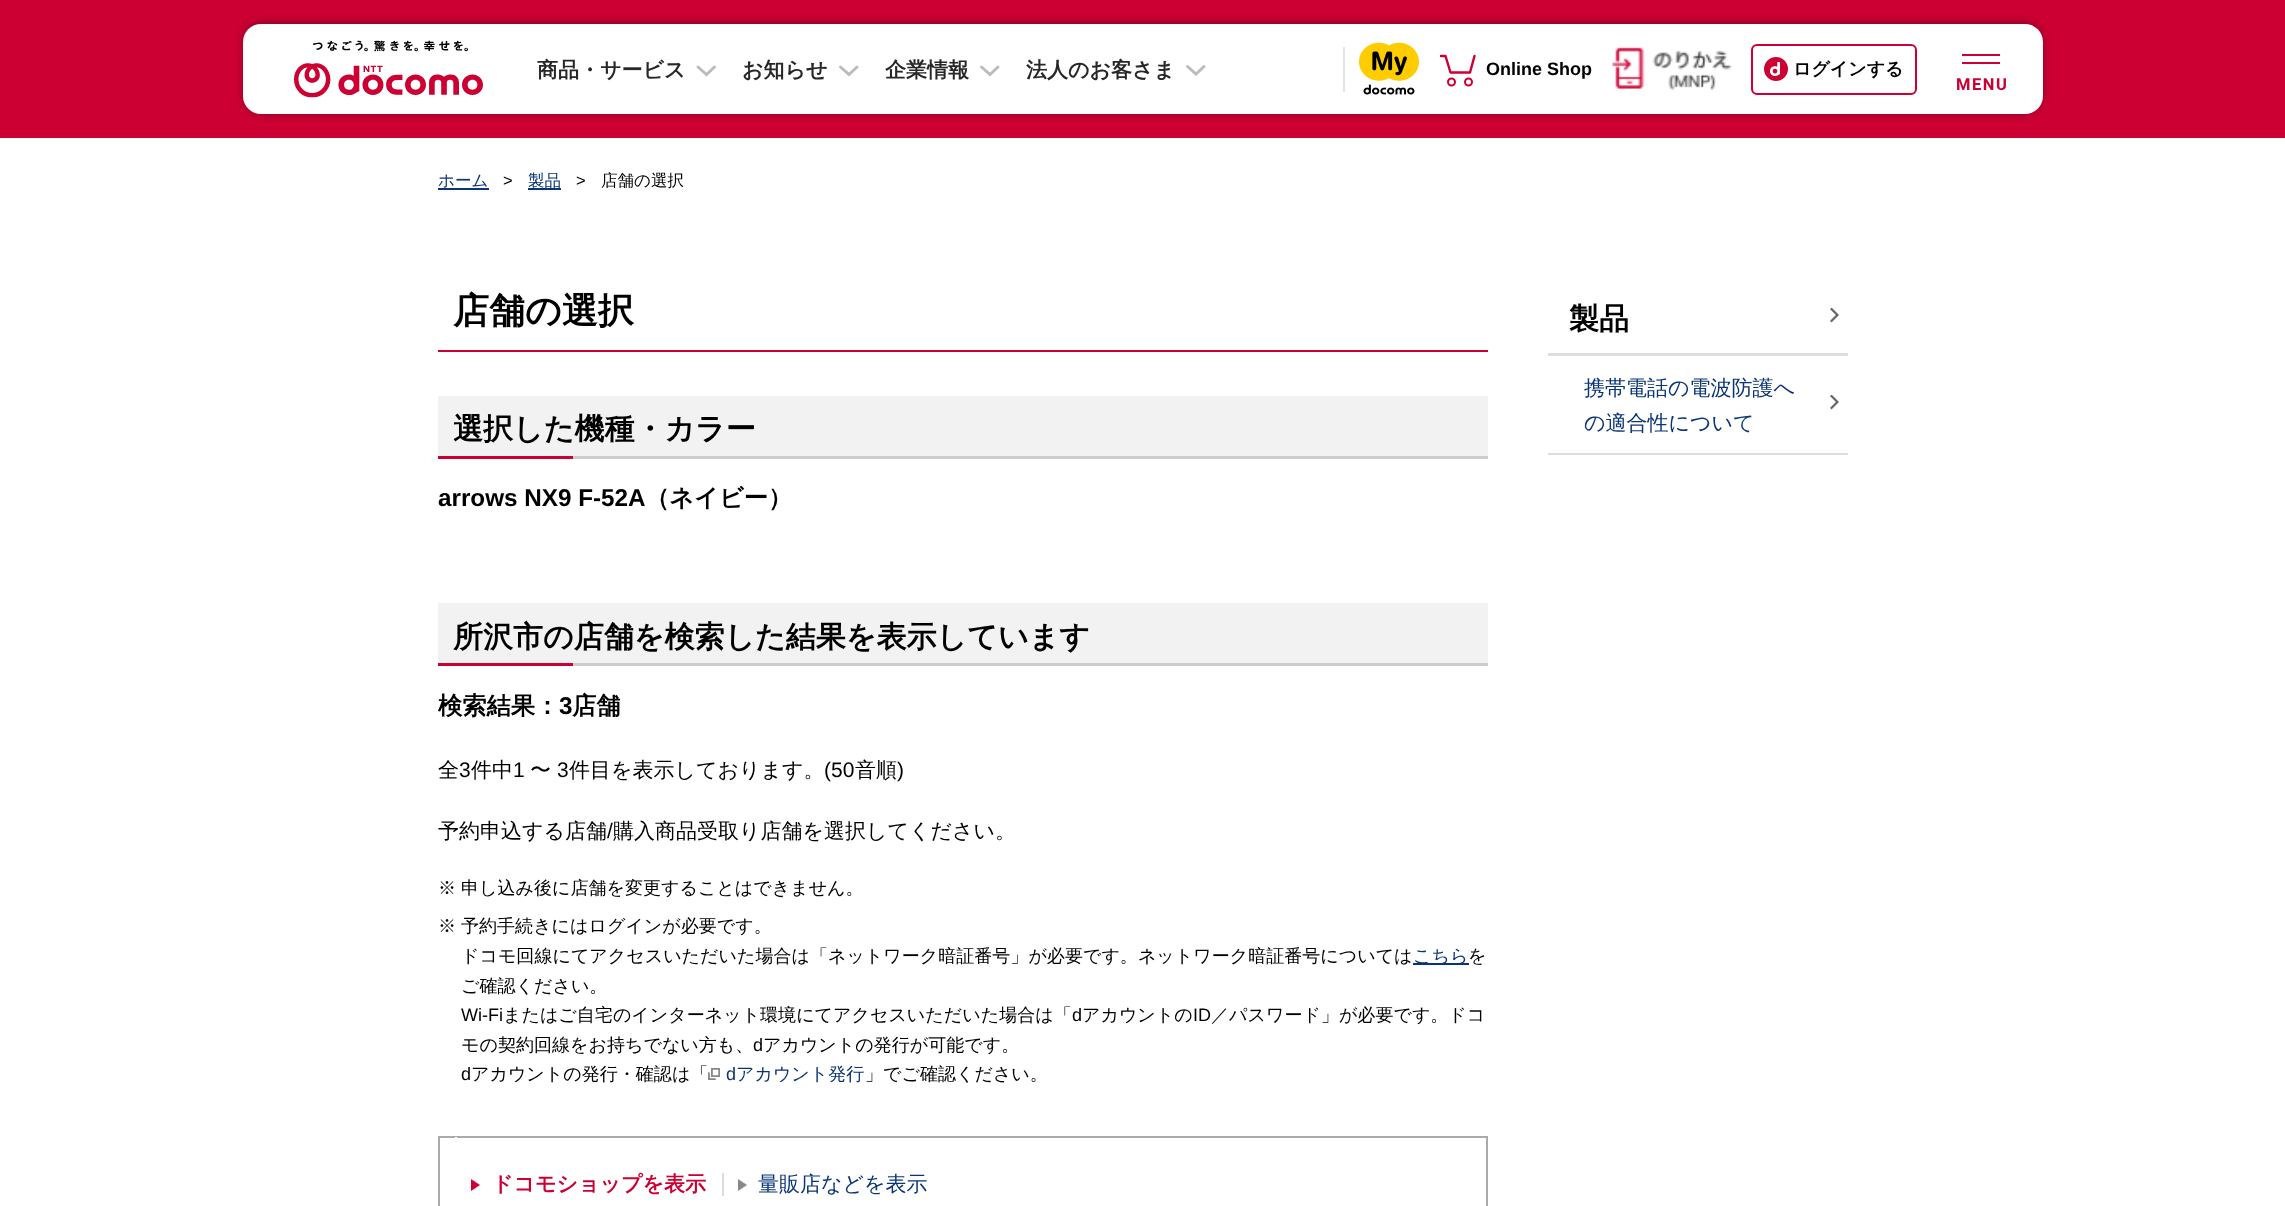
<svg xmlns="http://www.w3.org/2000/svg" width="2285" height="1206">
	<rect width="100%" height="100%" fill="#FFFFFF" />
	<rect x="0" y="0" width="2285" height="138" fill="#CC0033" />
	<rect x="246" y="23" width="1794" height="90" rx="18" fill="#000000" fill-opacity="0.2" filter="blur(4px)" />
	<rect x="243" y="23" width="1800" height="90" rx="18" fill="#000000" fill-opacity="0.2" filter="blur(4px)" />
	<rect x="243" y="24" width="1800" height="90" rx="18" fill="#FFFFFF" />
	<image x="294" y="40" width="189" height="58" href="assets/img1.png" />
	<text x="537" y="77" font-family="WenQuanYi Zen Hei" font-size="21" font-weight="700" fill="#272727">商品・サービス</text>
	<path d="M714.5 67L706.5 74.5L698 67" fill="none" stroke="#BCBCBC" stroke-width="3" stroke-linecap="round" />
	<text x="742" y="77" font-family="WenQuanYi Zen Hei" font-size="21" font-weight="700" fill="#272727">お知らせ</text>
	<path d="M857 67L849 74.5L840.5 67" fill="none" stroke="#BCBCBC" stroke-width="3" stroke-linecap="round" />
	<text x="885" y="77" font-family="WenQuanYi Zen Hei" font-size="21" font-weight="700" fill="#272727">企業情報</text>
	<path d="M998 67L990 74.5L981.5 67" fill="none" stroke="#BCBCBC" stroke-width="3" stroke-linecap="round" />
	<text x="1026" y="77" font-family="WenQuanYi Zen Hei" font-size="21" font-weight="700" fill="#272727">法人のお客さま</text>
	<path d="M1204 66.5L1196 74L1187.5 66.5" fill="none" stroke="#BCBCBC" stroke-width="3" stroke-linecap="round" />
	<rect x="1343" y="47" width="2" height="45" fill="#E5E5E5" />
	<image x="1359" y="42" width="60" height="53" href="assets/img2.png" />
	<path d="M1441 56H1445.5L1450.5 72.5H1470L1474.5 56" fill="none" stroke="#CC0033" stroke-width="2.4" stroke-linecap="round" stroke-linejoin="round" />
	<circle cx="1451.5" cy="82" r="3.5" fill="none" stroke="#CC0033" stroke-width="2" />
	<circle cx="1468.5" cy="82" r="3.5" fill="none" stroke="#CC0033" stroke-width="2" />
	<text x="1486" y="75" font-family="Liberation Sans" font-size="18" font-weight="700" fill="#000000">Online Shop</text>
	<image x="1612" y="46" width="120" height="45" href="assets/img3.png" />
	<rect x="1752" y="45" width="164" height="49" rx="5" fill="none" stroke="#CC0033" stroke-width="2" />
	<image x="1764" y="57" width="24" height="24" href="assets/img4.png" />
	<text x="1793" y="75" font-family="WenQuanYi Zen Hei" font-size="18" font-weight="700" fill="#000000">ログインする</text>
	<rect x="1962" y="54" width="38" height="2" fill="#CC0033" />
	<rect x="1962" y="62" width="38" height="2" fill="#CC0033" />
	<text x="1956" y="90" font-family="Roboto" font-size="16.5" font-weight="700" letter-spacing="1.5" fill="#CC0033">MENU</text>
	<text x="438" y="186" font-family="WenQuanYi Zen Hei" font-size="16.5" font-weight="500" fill="#093475">ホーム</text>
	<rect x="438" y="188" width="51" height="2" fill="#093475" />
	<text x="503" y="186" font-family="Liberation Sans" font-size="16.5" fill="#000000">&gt;</text>
	<text x="528" y="186" font-family="WenQuanYi Zen Hei" font-size="16.5" font-weight="500" fill="#093475">製品</text>
	<rect x="528" y="188" width="33" height="2" fill="#093475" />
	<text x="576" y="186" font-family="Liberation Sans" font-size="16.5" fill="#000000">&gt;</text>
	<text x="601" y="186" font-family="WenQuanYi Zen Hei" font-size="16.5" font-weight="500" fill="#000000">店舗の選択</text>
	<rect x="438" y="350" width="1050" height="2" fill="#CC0033" />
	<text x="453" y="323" font-family="WenQuanYi Zen Hei" font-size="36" font-weight="700" fill="#000000">店舗の選択</text>
	<rect x="438" y="396" width="1050" height="60" fill="#F2F2F2" />
	<rect x="573" y="456" width="915" height="3" fill="#CCCCCC" />
	<text x="453" y="439" font-family="WenQuanYi Zen Hei" font-size="30" font-weight="700" fill="#000000">選択した機種・カラー</text>
	<rect x="438" y="456" width="135" height="3" fill="#CC0033" />
	<text x="438" y="506" font-family="Liberation Sans" font-size="24.25" font-weight="700" fill="#000000">arrows NX9 F-52A</text>
	<text x="645" y="506" font-family="WenQuanYi Zen Hei" font-size="24.25" font-weight="700" fill="#000000">（ネイビー）</text>
	<rect x="438" y="603" width="1050" height="60" fill="#F2F2F2" />
	<rect x="573" y="663" width="915" height="3" fill="#CCCCCC" />
	<text x="453" y="647" font-family="WenQuanYi Zen Hei" font-size="30" font-weight="700" fill="#000000">所沢市の店舗を検索した結果を表示しています</text>
	<rect x="438" y="663" width="135" height="3" fill="#CC0033" />
	<text x="438" y="714" font-family="WenQuanYi Zen Hei" font-size="24.25" font-weight="700" fill="#000000">検索結果：</text>
	<text x="559" y="714" font-family="Liberation Sans" font-size="24.25" font-weight="700" fill="#000000">3</text>
	<text x="572" y="714" font-family="WenQuanYi Zen Hei" font-size="24.25" font-weight="700" fill="#000000">店舗</text>
	<text x="438" y="777" font-family="WenQuanYi Zen Hei" font-size="21" font-weight="500" fill="#000000">全</text>
	<text x="459" y="777" font-family="Liberation Sans" font-size="21" fill="#000000">3</text>
	<text x="471" y="777" font-family="WenQuanYi Zen Hei" font-size="21" font-weight="500" fill="#000000">件中</text>
	<text x="513" y="777" font-family="Liberation Sans" font-size="21" fill="#000000">1</text>
	<text x="530" y="777" font-family="WenQuanYi Zen Hei" font-size="21" font-weight="500" fill="#000000">〜</text>
	<text x="557" y="777" font-family="Liberation Sans" font-size="21" fill="#000000">3</text>
	<text x="569" y="777" font-family="WenQuanYi Zen Hei" font-size="21" font-weight="500" fill="#000000">件目を表示しております。</text>
	<text x="824" y="777" font-family="Liberation Sans" font-size="21" fill="#000000">(50</text>
	<text x="855" y="777" font-family="WenQuanYi Zen Hei" font-size="21" font-weight="500" fill="#000000">音順</text>
	<text x="897" y="777" font-family="Liberation Sans" font-size="21" fill="#000000">)</text>
	<text x="438" y="838" font-family="WenQuanYi Zen Hei" font-size="21" font-weight="500" fill="#000000">予約申込する店舗</text>
	<text x="607" y="838" font-family="Liberation Sans" font-size="21" fill="#000000">/</text>
	<text x="613" y="838" font-family="WenQuanYi Zen Hei" font-size="21" font-weight="500" fill="#000000">購入商品受取り店舗を選択してください。</text>
	<g font-family="WenQuanYi Zen Hei" font-size="18.05" font-weight="500" fill="#000000">
		<text x="438" y="894">※</text>
		<text x="461" y="894">申し込み後に店舗を変更することはできません。</text>
		<text x="438" y="932">※</text>
		<text x="461" y="932">予約手続きにはログインが必要です。</text>
		<text x="461" y="962">ドコモ回線にてアクセスいただいた場合は「ネットワーク暗証番号」が必要です。ネットワーク暗証番号については</text>
	</g>
	<rect x="1413" y="963" width="56" height="2" fill="#093475" />
	<text x="1413" y="962" font-family="WenQuanYi Zen Hei" font-size="18.05" font-weight="500" fill="#093475">こちら</text>
	<g font-family="WenQuanYi Zen Hei" font-size="18.05" font-weight="500" fill="#000000">
		<text x="1468" y="962">を</text>
		<text x="461" y="992">ご確認ください。</text>
	</g>
	<text x="461" y="1021" font-family="Liberation Sans" font-size="18.05" fill="#000000">Wi-Fi</text>
	<text x="503" y="1021" font-family="WenQuanYi Zen Hei" font-size="18.05" font-weight="500" fill="#000000">またはご自宅のインターネット環境にてアクセスいただいた場合は「</text>
	<text x="1072" y="1021" font-family="Liberation Sans" font-size="18.05" fill="#000000">d</text>
	<text x="1082" y="1021" font-family="WenQuanYi Zen Hei" font-size="18.05" font-weight="500" fill="#000000">アカウントの</text>
	<text x="1193" y="1021" font-family="Liberation Sans" font-size="18.05" fill="#000000">ID</text>
	<g font-family="WenQuanYi Zen Hei" font-size="18.05" font-weight="500" fill="#000000">
		<text x="1211" y="1021">／パスワード」が必要です。ドコ</text>
		<text x="461" y="1051">モの契約回線をお持ちでない方も、</text>
	</g>
	<text x="753" y="1051" font-family="Liberation Sans" font-size="18.05" fill="#000000">d</text>
	<text x="763" y="1051" font-family="WenQuanYi Zen Hei" font-size="18.05" font-weight="500" fill="#000000">アカウントの発行が可能です。</text>
	<text x="461" y="1080" font-family="Liberation Sans" font-size="18.05" fill="#000000">d</text>
	<text x="471" y="1080" font-family="WenQuanYi Zen Hei" font-size="18.05" font-weight="500" fill="#000000">アカウントの発行・確認は「</text>
	<image x="708" y="1068" width="12" height="12" href="assets/img5.png" />
	<image x="708" y="1069" width="11" height="11" href="assets/img6.png" />
	<text x="726" y="1080" font-family="Liberation Sans" font-size="18.05" fill="#093475">d</text>
	<text x="736" y="1080" font-family="WenQuanYi Zen Hei" font-size="18.05" font-weight="500" fill="#093475">アカウント発行</text>
	<text x="865" y="1080" font-family="WenQuanYi Zen Hei" font-size="18.05" font-weight="500" fill="#000000">」でご確認ください。</text>
	<rect x="439" y="1137" width="1048" height="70" fill="none" stroke="#AAAAAA" stroke-width="2" />
	<rect x="455" y="1137" width="2" height="1" fill="#FFFFFF" />
	<image x="471" y="1179" width="9" height="12" href="assets/img7.png" />
	<text x="492" y="1191" font-family="WenQuanYi Zen Hei" font-size="21" font-weight="700" fill="#CC0033">ドコモショップを表示</text>
	<rect x="722" y="1173" width="2" height="23" fill="#DDDDDD" />
	<image x="738" y="1179" width="9" height="12" href="assets/img8.png" />
	<text x="758" y="1191" font-family="WenQuanYi Zen Hei" font-size="21" font-weight="500" fill="#093475">量販店などを表示</text>
	<rect x="1548" y="353" width="300" height="3" fill="#DDDDDD" />
	<text x="1569" y="329" font-family="WenQuanYi Zen Hei" font-size="30" font-weight="700" fill="#000000">製品</text>
	<image x="1830" y="308" width="9" height="15" href="assets/img9.png" />
	<rect x="1548" y="453" width="300" height="2" fill="#DDDDDD" />
	<text x="1584" y="395" font-family="WenQuanYi Zen Hei" font-size="21" font-weight="500" fill="#093475">携帯電話の電波防護へ</text>
	<image x="1830" y="395" width="9" height="15" href="assets/img9.png" />
	<text x="1584" y="430" font-family="WenQuanYi Zen Hei" font-size="21" font-weight="500" fill="#093475">の適合性について</text>
</svg>
